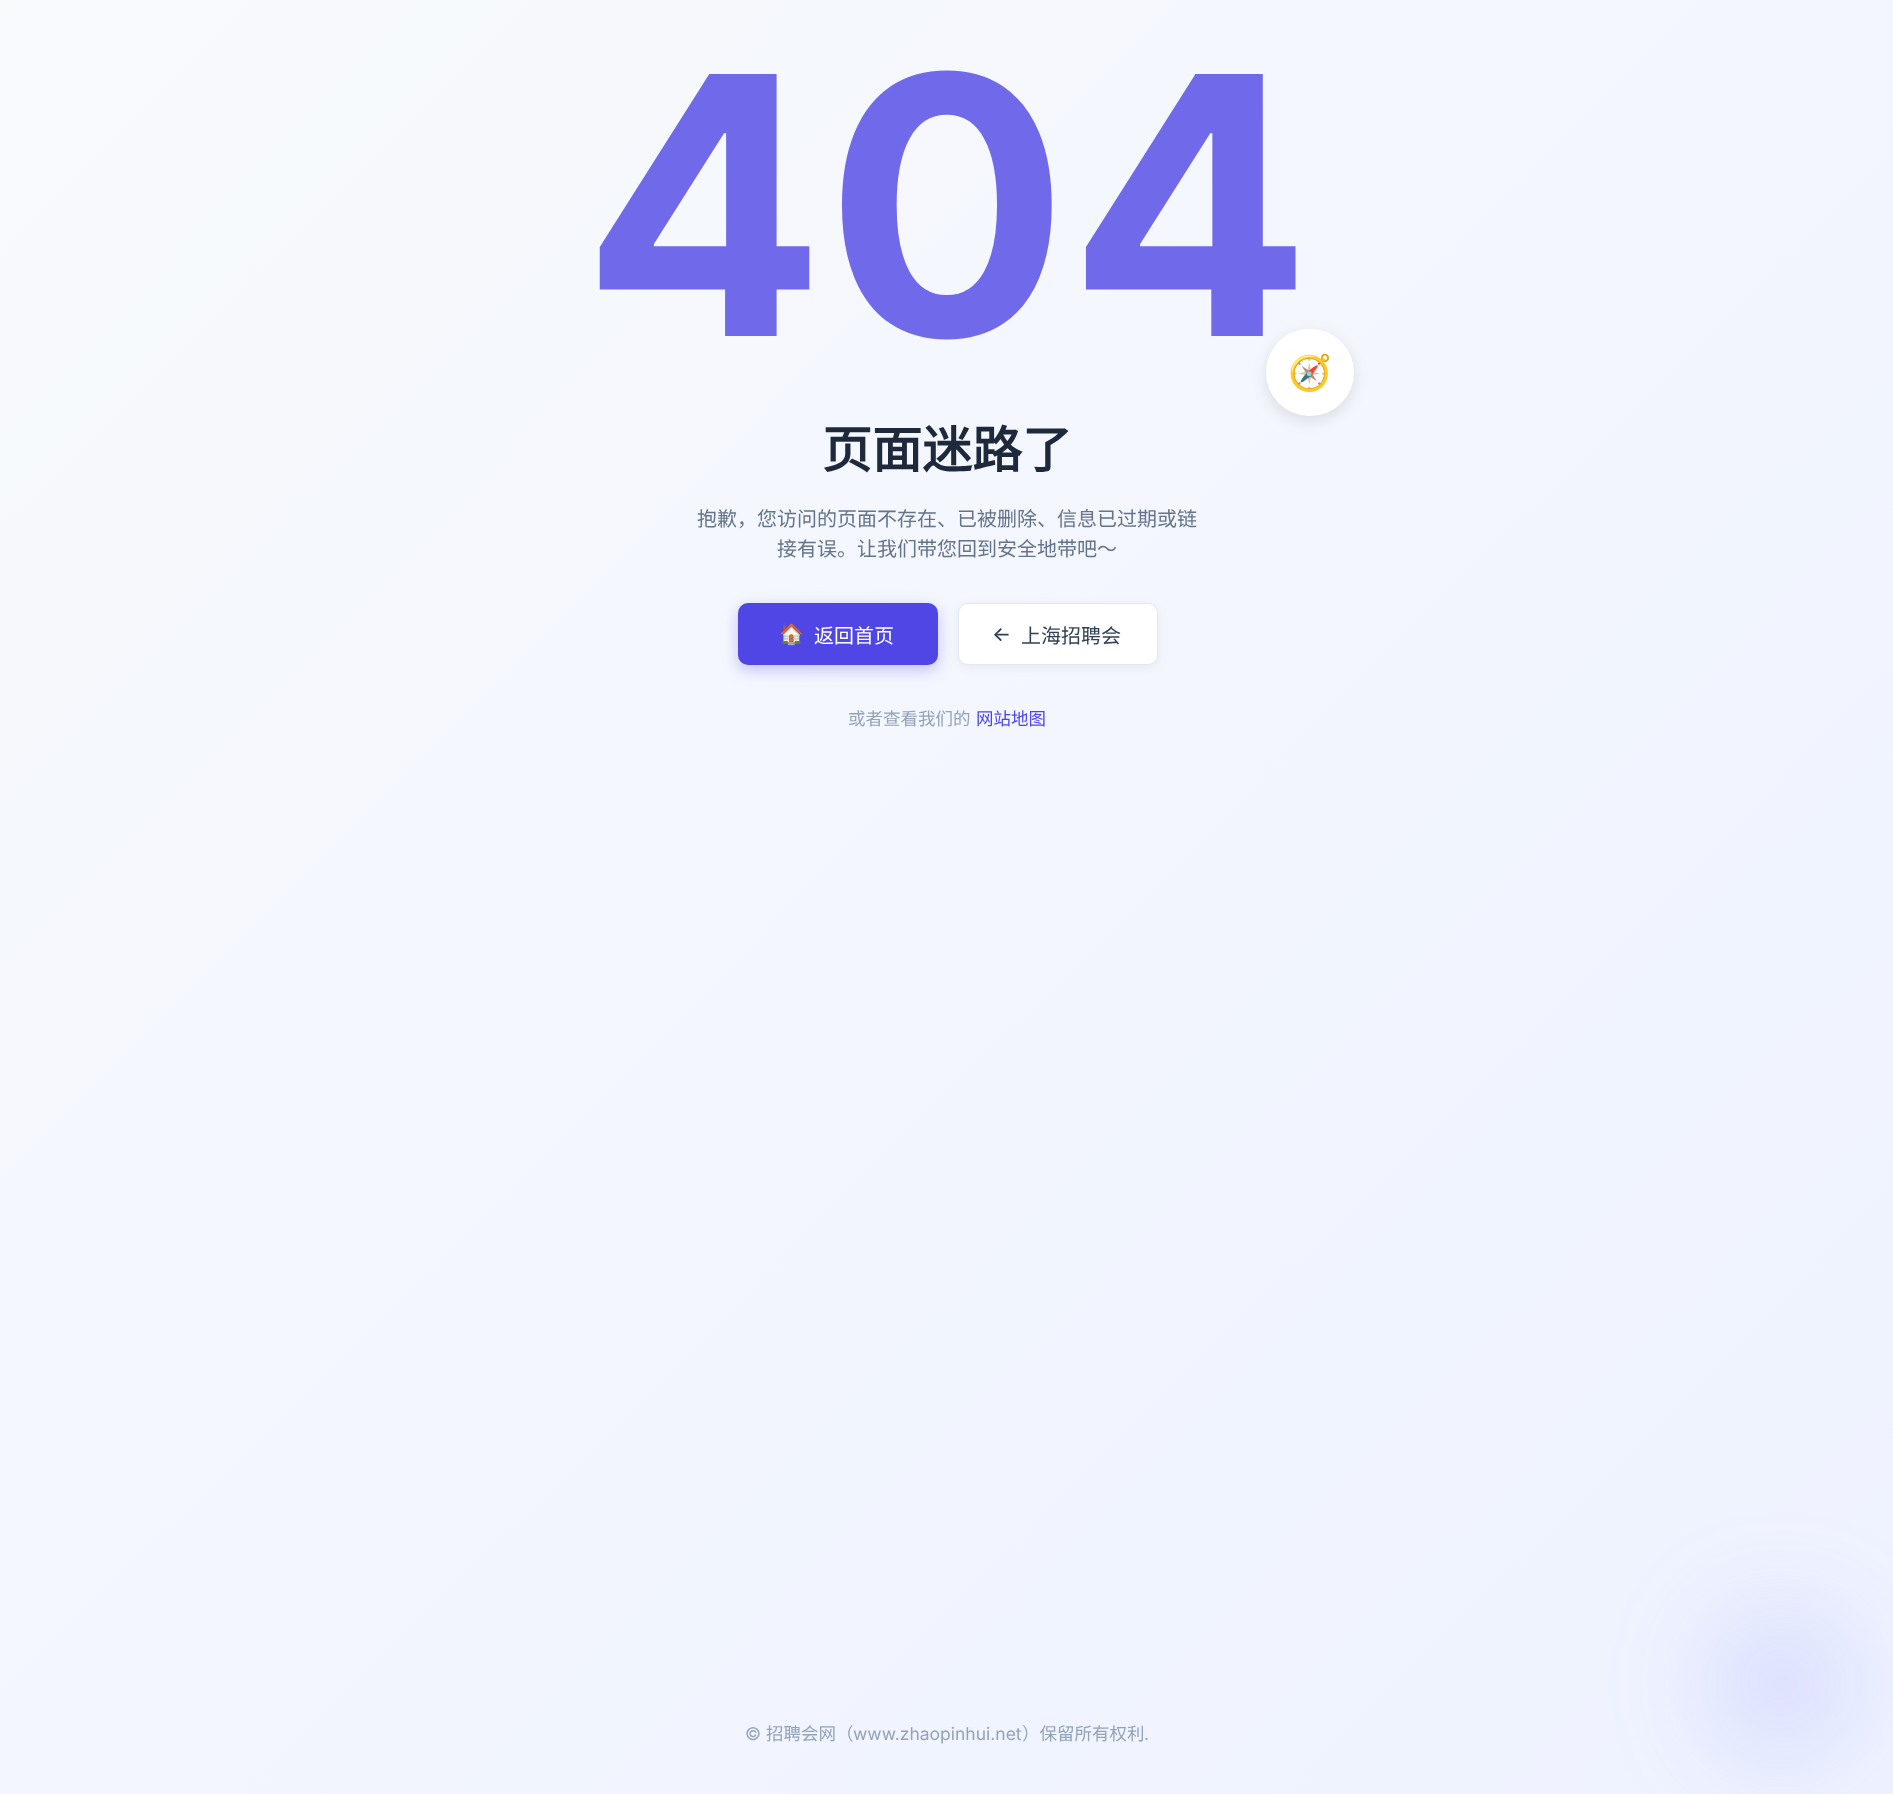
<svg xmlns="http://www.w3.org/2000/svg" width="1893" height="1794">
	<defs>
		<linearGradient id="g1" gradientUnits="userSpaceOnUse" x1="25" y1="-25" x2="1869" y2="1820"><stop offset="0" stop-color="#F8FAFC" /><stop offset="1" stop-color="#EEF2FF" /></linearGradient>
	</defs>
	<rect width="100%" height="100%" fill="#FFFFFF" />
	<rect x="0" y="0" width="1893" height="1794" fill="url(#g1)" />
	<text x="582" y="336" font-family="Inter" font-size="360" font-weight="700" fill="#706AEA">404</text>
	<rect x="1266" y="334" width="88" height="87" rx="43.5" fill="#000000" fill-opacity="0.1" filter="blur(7.5px)" />
	<rect x="1266" y="329" width="88" height="87" rx="43.5" fill="#FFFFFF" />
	<text x="1288" y="385" font-family="Noto Color Emoji" font-size="35" font-weight="700" fill="#706AEA">🧭</text>
	<text x="822" y="468" font-family="Noto Sans CJK SC" font-size="50" font-weight="700" fill="#1E293B">页面迷路了</text>
	<g font-family="Noto Sans CJK SC" font-size="20" fill="#64748B">
		<text x="697" y="526">抱歉，您访问的页面不存在、已被删除、信息已过期或链</text>
		<text x="777" y="556">接有误。让我们带您回到安全地带吧～</text>
	</g>
	<rect x="738" y="608" width="200" height="62" rx="10" fill="#4F46E5" fill-opacity="0.3" filter="blur(7.5px)" />
	<rect x="738" y="603" width="200" height="62" rx="10" fill="#4F46E5" />
	<text x="779" y="641" font-family="Noto Color Emoji" font-size="20" fill="#FFFFFF">🏠</text>
	<text x="814" y="643" font-family="Noto Sans CJK SC" font-size="20" fill="#FFFFFF">返回首页</text>
	<rect x="958" y="605" width="200" height="63" rx="10" fill="#000000" fill-opacity="0.05" filter="blur(5px)" />
	<rect x="958.5" y="603.5" width="199" height="61" rx="9.5" fill="#FFFFFF" stroke="#E2E8F0" />
	<text x="992" y="641" font-family="Inter" font-size="20" font-weight="500" fill="#334155">←</text>
	<text x="1021" y="643" font-family="Noto Sans CJK SC" font-size="20" fill="#334155">上海招聘会</text>
	<text x="848" y="725" font-family="Noto Sans CJK SC" font-size="17.5" fill="#94A3B8">或者查看我们的</text>
	<text x="976" y="725" font-family="Noto Sans CJK SC" font-size="17.5" fill="#4F46E5">网站地图</text>
	<text x="745" y="1740" font-family="Inter" font-size="17.5" fill="#94A3B8">©</text>
	<text x="766" y="1740" font-family="Noto Sans CJK SC" font-size="17.5" fill="#94A3B8">招聘会网（</text>
	<text x="853" y="1740" font-family="Inter" font-size="17.5" fill="#94A3B8">www.zhaopinhui.net</text>
	<text x="1022" y="1740" font-family="Noto Sans CJK SC" font-size="17.5" fill="#94A3B8">）保留所有权利</text>
	<text x="1144" y="1740" font-family="Inter" font-size="17.5" fill="#94A3B8">.</text>
	<rect x="1706" y="1608" width="150" height="150" rx="75" fill="#818CF8" fill-opacity="0.2" filter="blur(50px)" />
</svg>
